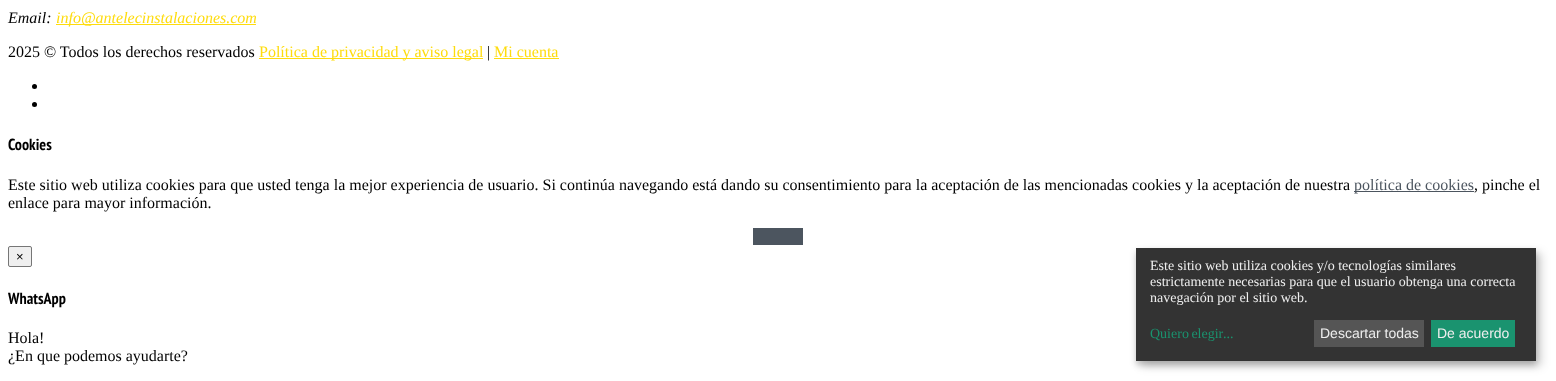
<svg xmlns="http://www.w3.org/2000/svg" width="1556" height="381">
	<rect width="100%" height="100%" fill="#FFFFFF" />
	<text x="8" y="23" font-family="Liberation Serif" font-size="16" font-style="italic" fill="#000000">Email:</text>
	<rect x="56" y="24" width="200" height="1" fill="#FEDC0D" />
	<text x="56" y="23" font-family="Liberation Serif" font-size="16" font-style="italic" fill="#FEDC0D">info@antelecinstalaciones.com</text>
	<text x="8" y="57" font-family="Liberation Serif" font-size="16" fill="#000000">2025 © Todos los derechos reservados</text>
	<rect x="259" y="58" width="224" height="1" fill="#FEDC0D" />
	<text x="259" y="57" font-family="Liberation Serif" font-size="16" fill="#FEDC0D">Política de privacidad y aviso legal</text>
	<text x="487" y="57" font-family="Liberation Serif" font-size="16" fill="#000000">|</text>
	<text x="494" y="57" font-family="Liberation Serif" font-size="16" fill="#FEDC0D">Mi cuenta</text>
	<rect x="494" y="58" width="65" height="1" fill="#FEDC0D" />
	<circle cx="34.5" cy="86.5" r="2.5" fill="#000000" />
	<circle cx="34.5" cy="104.5" r="2.5" fill="#000000" />
	<text x="8" y="150" font-family="PT Sans Narrow" font-size="16" font-weight="700" fill="#000000">Cookies</text>
	<text x="8" y="190" font-family="Liberation Serif" font-size="16" fill="#000000">Este sitio web utiliza cookies para que usted tenga la mejor experiencia de usuario. Si continúa navegando está dando su consentimiento para la aceptación de las mencionadas cookies y la aceptación de nuestra</text>
	<rect x="1354" y="191" width="120" height="1" fill="#4C555F" />
	<text x="1354" y="190" font-family="Liberation Serif" font-size="16" fill="#4C555F">política de cookies</text>
	<g font-family="Liberation Serif" font-size="16" fill="#000000">
		<text x="1474" y="190">, pinche el</text>
		<text x="8" y="208">enlace para mayor información.</text>
	</g>
	<rect x="753" y="228" width="50" height="17" fill="#4C555F" />
	<rect x="8.5" y="246.5" width="23" height="20" rx="1.5" fill="#EFEFEF" stroke="#767676" />
	<text x="16" y="261" font-family="Liberation Sans" font-size="13" fill="#000000">×</text>
	<text x="8" y="304" font-family="PT Sans Narrow" font-size="16" font-weight="700" fill="#000000">WhatsApp</text>
	<g font-family="Liberation Serif" font-size="16" fill="#000000">
		<text x="8" y="343">Hola!</text>
		<text x="8" y="361">¿En que podemos ayudarte?</text>
	</g>
	<rect x="1141" y="253" width="400" height="113" fill="#000000" fill-opacity="0.19" filter="blur(5px)" />
	<rect x="1136" y="252" width="400" height="113" fill="#000000" fill-opacity="0.2" filter="blur(3px)" />
	<rect x="1136" y="248" width="400" height="113" fill="#333333" />
	<g font-family="Liberation Serif" font-size="14" fill="#EEEEEE">
		<text x="1150" y="270">Este sitio web utiliza cookies y/o tecnologías similares</text>
		<text x="1150" y="286">estrictamente necesarias para que el usuario obtenga una correcta</text>
		<text x="1150" y="302">navegación por el sitio web.</text>
	</g>
	<g font-family="Liberation Serif" font-size="14" fill="#1A936F">
		<text x="1150" y="338" word-spacing="-1">Quiero elegir</text>
		<text x="1223" y="338">...</text>
	</g>
	<rect x="1314" y="320" width="110" height="27" fill="#555555" />
	<text x="1320" y="338" font-family="Liberation Sans" font-size="14" fill="#EEEEEE">Descartar todas</text>
	<rect x="1431" y="320" width="84" height="27" fill="#1A936F" />
	<text x="1437" y="338" font-family="Liberation Sans" font-size="14" fill="#EEEEEE">De acuerdo</text>
</svg>
